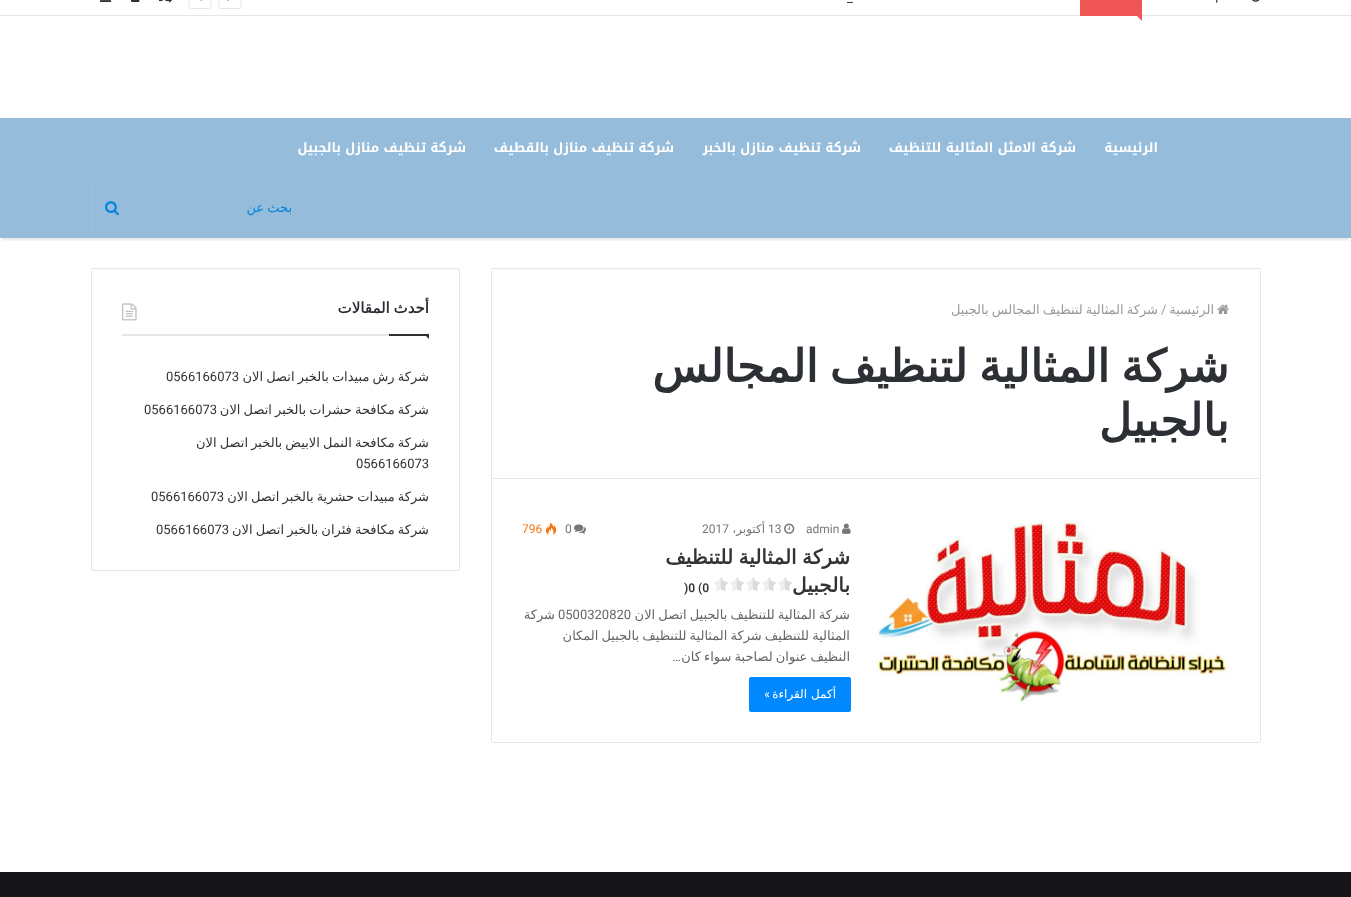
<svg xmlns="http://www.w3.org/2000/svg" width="1351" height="897">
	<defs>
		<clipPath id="clip1"><rect x="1" y="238" width="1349" height="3" /></clipPath>
	</defs>
	<rect width="100%" height="100%" fill="#FFFFFF" />
	<g clip-path="url(#clip1)">
		<rect x="2" y="-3" width="1347" height="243" fill="#000000" fill-opacity="0.1" filter="blur(1px)" />
	</g>
	<rect x="0" y="15" width="1351" height="1" fill="#E6E6E6" />
	<image x="1252" y="0" width="8" height="2" href="assets/img1.png" />
	<text x="1218" y="1" font-family="Roboto" font-size="11" font-weight="600" direction="rtl" fill="#2C2F34">,</text>
	<rect x="1080" y="0" width="62" height="16" fill="#F05555" />
	<path d="M1133 12H1142V21Z" fill="#F05555" />
	<text x="847" y="2" font-family="Roboto" font-size="13" fill="#2C2F34">_</text>
	<path d="M239.5 8.5H220.5C219.5 8.5 219 8 219 7V-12C219-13 219.5-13.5 220.5-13.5H239.5C240.5-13.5 241-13 241-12V7C241 8 240.5 8.5 239.5 8.5Z" fill="none" stroke="#E6E6E6" />
	<image x="227" y="0" width="2" height="1" href="assets/img2.png" />
	<path d="M209.5 8.5H190.5C189.5 8.5 189 8 189 7V-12C189-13 189.5-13.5 190.5-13.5H209.5C210.5-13.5 211-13 211-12V7C211 8 210.5 8.5 209.5 8.5Z" fill="none" stroke="#E6E6E6" />
	<image x="200" y="0" width="2" height="1" href="assets/img3.png" />
	<image x="159" y="0" width="13" height="3" href="assets/img4.png" />
	<image x="131" y="0" width="9" height="2" href="assets/img5.png" />
	<image x="100" y="0" width="12" height="2" href="assets/img6.png" />
	<rect x="0" y="118" width="1351" height="120" fill="#95BCDB" />
	<g font-family="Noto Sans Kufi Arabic" font-size="13" font-weight="700" direction="rtl" fill="#FFFFFF">
		<text x="1158" y="152">الرئيسية</text>
		<text x="1076" y="152">شركة الامثل المثالية للتنظيف</text>
		<text x="861" y="152">شركة تنظيف منازل بالخبر</text>
		<text x="674" y="152">شركة تنظيف منازل بالقطيف</text>
		<text x="466" y="152">شركة تنظيف منازل بالجبيل</text>
	</g>
	<rect x="306" y="178" width="1" height="60" fill="#9CC1DE" />
	<rect x="91" y="178" width="1" height="60" fill="#9CC1DE" />
	<text x="292" y="212" word-spacing="-1" font-family="DejaVu Sans" font-size="13" direction="rtl" fill="#0083DB">بحث عن</text>
	<image x="105" y="201" width="14" height="15" href="assets/img7.png" />
	<path d="M493 268.5H1259C1260 268.5 1260.5 269 1260.5 270V478.5H491.5V270C491.5 269 492 268.5 493 268.5Z" fill="none" stroke="#E6E6E6" />
	<image x="1217" y="304" width="12" height="10" href="assets/img8.png" />
	<text x="1214" y="314" font-family="DejaVu Sans" font-size="13" direction="rtl" fill="#999999">الرئيسية</text>
	<text x="1161" y="314" font-family="Roboto" font-size="13" fill="#999999">/</text>
	<text x="1158" y="314" word-spacing="-1" font-family="DejaVu Sans" font-size="13" direction="rtl" fill="#999999">شركة المثالية لتنظيف المجالس بالجبيل</text>
	<g font-family="DejaVu Sans" font-size="45" font-weight="700" direction="rtl" fill="#2C2F34">
		<text x="1229" y="382" word-spacing="-3">شركة المثالية لتنظيف المجالس</text>
		<text x="1229" y="436">بالجبيل</text>
	</g>
	<rect x="1260" y="479" width="1" height="263" fill="#E6E6E6" />
	<rect x="492" y="742" width="768" height="1" fill="#E6E6E6" />
	<rect x="491" y="479" width="1" height="263" fill="#E6E6E6" />
	<image x="876" y="519" width="354" height="185" href="assets/img9.png" />
	<image x="842" y="523" width="9" height="11" href="assets/img10.png" />
	<text x="806" y="533" font-family="Roboto" font-size="12" fill="#777777">admin</text>
	<image x="784" y="523" width="11" height="11" href="assets/img11.png" />
	<text x="768" y="533" font-family="Roboto" font-size="12" fill="#777777">13</text>
	<text x="765" y="533" font-family="DejaVu Sans" font-size="12" direction="rtl" fill="#777777">أكتوبر،</text>
	<text x="702" y="533" font-family="Roboto" font-size="12" fill="#777777">2017</text>
	<image x="574" y="524" width="12" height="10" href="assets/img12.png" />
	<text x="565" y="533" font-family="Roboto" font-size="12" fill="#777777">0</text>
	<image x="545" y="522" width="12" height="13" href="assets/img13.png" />
	<text x="522" y="533" font-family="Roboto" font-size="12" fill="#F47512">796</text>
	<g font-family="DejaVu Sans" font-size="20" font-weight="700" direction="rtl" fill="#333333">
		<text x="850" y="564" word-spacing="-1">شركة المثالية للتنظيف</text>
		<text x="850" y="592">بالجبيل</text>
	</g>
	<image x="713" y="577" width="80" height="14" href="assets/img14.png" />
	<text x="684" y="592" font-family="Roboto" font-size="12" font-weight="600" fill="#333333">)0 (0</text>
	<text x="850" y="619" word-spacing="-1" font-family="DejaVu Sans" font-size="13" direction="rtl" fill="#666666">شركة المثالية للتنظيف بالجبيل اتصل الان</text>
	<text x="558" y="619" font-family="Roboto" font-size="13" fill="#666666">0500320820</text>
	<g font-family="DejaVu Sans" font-size="13" direction="rtl" fill="#666666">
		<text x="555" y="619">شركة</text>
		<text x="850" y="640" word-spacing="-1">المثالية للتنظيف شركة المثالية للتنظيف بالجبيل المكان</text>
		<text x="850" y="661" word-spacing="-1">النظيف عنوان لصاحبة سواء كان</text>
	</g>
	<text x="681" y="661" font-family="Roboto" font-size="13" direction="rtl" fill="#666666">…</text>
	<rect x="749" y="677" width="102" height="35" rx="2" fill="#0088FF" />
	<text x="836" y="698" font-family="DejaVu Sans" font-size="12" direction="rtl" fill="#FFFFFF">أكمل القراءة</text>
	<text x="770" y="698" font-family="Roboto" font-size="12" direction="rtl" fill="#FFFFFF">»</text>
	<rect x="91.5" y="268.5" width="368" height="302" rx="1.5" fill="none" stroke="#E6E6E6" />
	<rect x="122" y="334" width="267" height="2" fill="#E6E6E6" />
	<text x="429" y="313" word-spacing="-1" font-family="DejaVu Sans" font-size="15" font-weight="700" direction="rtl" fill="#2C2F34">أحدث المقالات</text>
	<image x="122" y="303" width="15" height="18" href="assets/img15.png" />
	<path d="M424 334H429V339Z" fill="#2C2F34" />
	<rect x="389" y="334" width="40" height="2" fill="#2C2F34" />
	<text x="429" y="381" word-spacing="-1" font-family="DejaVu Sans" font-size="13" direction="rtl" fill="#333333">شركة رش مبيدات بالخبر اتصل الان</text>
	<text x="166" y="381" font-family="Roboto" font-size="13" fill="#333333">0566166073</text>
	<text x="429" y="414" word-spacing="-1" font-family="DejaVu Sans" font-size="13" direction="rtl" fill="#333333">شركة مكافحة حشرات بالخبر اتصل الان</text>
	<text x="144" y="414" font-family="Roboto" font-size="13" fill="#333333">0566166073</text>
	<text x="429" y="447" word-spacing="-1" font-family="DejaVu Sans" font-size="13" direction="rtl" fill="#333333">شركة مكافحة النمل الابيض بالخبر اتصل الان</text>
	<text x="356" y="468" font-family="Roboto" font-size="13" fill="#333333">0566166073</text>
	<text x="429" y="501" word-spacing="-1" font-family="DejaVu Sans" font-size="13" direction="rtl" fill="#333333">شركة مبيدات حشرية بالخبر اتصل الان</text>
	<text x="151" y="501" font-family="Roboto" font-size="13" fill="#333333">0566166073</text>
	<text x="429" y="534" word-spacing="-1" font-family="DejaVu Sans" font-size="13" direction="rtl" fill="#333333">شركة مكافحة فئران بالخبر اتصل الان</text>
	<text x="156" y="534" font-family="Roboto" font-size="13" fill="#333333">0566166073</text>
	<rect x="0" y="872" width="1351" height="25" fill="#161619" />
</svg>
